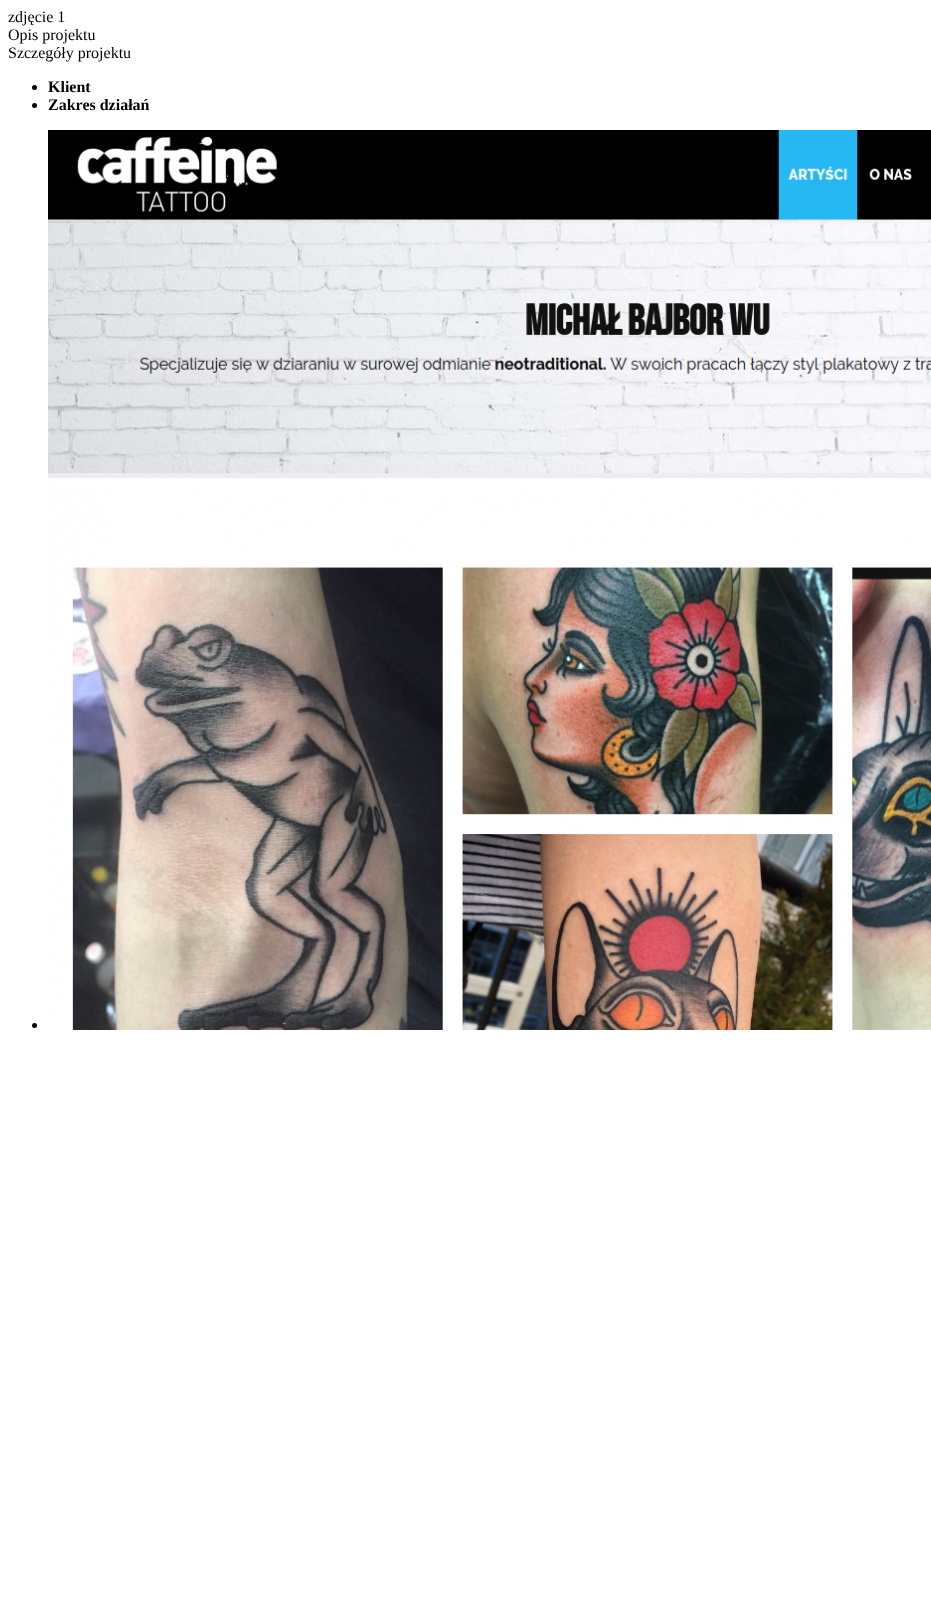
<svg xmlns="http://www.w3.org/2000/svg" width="931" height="1609">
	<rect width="100%" height="100%" fill="#FFFFFF" />
	<g font-family="Liberation Serif" font-size="16" fill="#000000">
		<text x="8" y="22">zdjęcie 1</text>
		<text x="8" y="40">Opis projektu</text>
		<text x="8" y="58">Szczegóły projektu</text>
	</g>
	<circle cx="34.5" cy="87.5" r="2.5" fill="#000000" />
	<text x="48" y="92" font-family="Liberation Serif" font-size="16" font-weight="700" fill="#000000">Klient</text>
	<circle cx="34.5" cy="105.5" r="2.5" fill="#000000" />
	<text x="48" y="110" font-family="Liberation Serif" font-size="16" font-weight="700" fill="#000000">Zakres działań</text>
	<circle cx="34.5" cy="1025.5" r="2.5" fill="#000000" />
	<image x="48" y="130" width="883" height="900" href="assets/img1.png" />
</svg>
